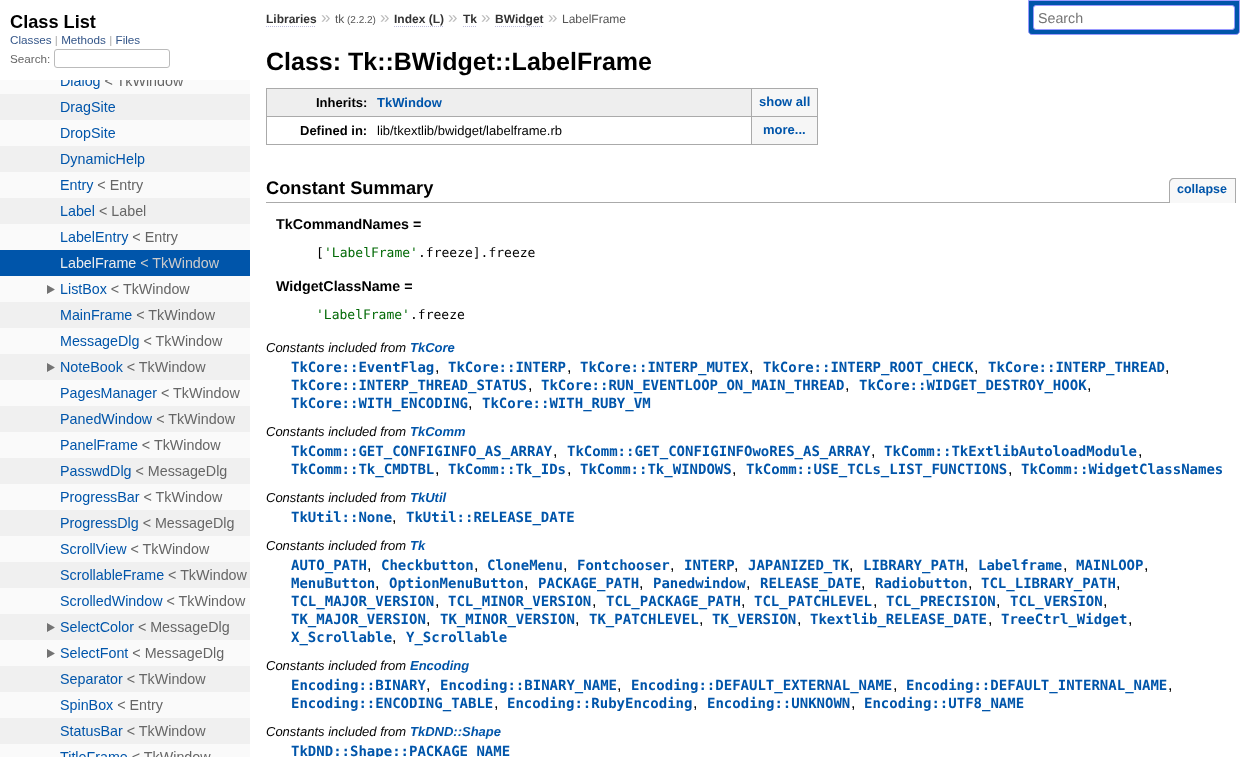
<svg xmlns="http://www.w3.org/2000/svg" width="1252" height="757">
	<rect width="100%" height="100%" fill="#FFFFFF" />
	<image x="0" y="15" width="250" height="742" href="assets/img1.png" />
	<text x="266" y="23" font-family="Liberation Sans" font-size="12" font-weight="700" fill="#333333">Libraries</text>
	<path d="M266 26.5H316" fill="none" stroke="#BBBBDD" stroke-dasharray="1 1" />
	<text x="321" y="23" font-family="Liberation Sans" font-size="17" fill="#BBBBBB">»</text>
	<text x="335" y="23" font-family="Liberation Sans" font-size="12" fill="#555555">tk</text>
	<text x="347" y="23" font-family="Liberation Sans" font-size="10" fill="#555555">(2.2.2)</text>
	<text x="380" y="23" font-family="Liberation Sans" font-size="17" fill="#BBBBBB">»</text>
	<text x="394" y="23" font-family="Liberation Sans" font-size="12" font-weight="700" fill="#333333">Index (L)</text>
	<path d="M394 26.5H444" fill="none" stroke="#BBBBDD" stroke-dasharray="1 1" />
	<text x="448" y="23" font-family="Liberation Sans" font-size="17" fill="#BBBBBB">»</text>
	<text x="463" y="23" font-family="Liberation Sans" font-size="12" font-weight="700" fill="#333333">Tk</text>
	<path d="M463 26.5H476" fill="none" stroke="#BBBBDD" stroke-dasharray="1 1" />
	<text x="481" y="23" font-family="Liberation Sans" font-size="17" fill="#BBBBBB">»</text>
	<text x="495" y="23" font-family="Liberation Sans" font-size="12" font-weight="700" fill="#333333">BWidget</text>
	<path d="M495 26.5H543" fill="none" stroke="#BBBBDD" stroke-dasharray="1 1" />
	<text x="548" y="23" font-family="Liberation Sans" font-size="17" fill="#BBBBBB">»</text>
	<text x="562" y="23" font-family="Liberation Sans" font-size="12" fill="#555555">LabelFrame</text>
	<path d="M1028.5 .5H1239.5V31C1239.5 33 1238 34.5 1236 34.5H1032C1030 34.5 1028.5 33 1028.5 31Z" fill="#0055AA" stroke="#9999FF" />
	<rect x="1033.5" y="5.5" width="201" height="24" rx="2.5" fill="#FFFFFF" stroke="#9999FF" />
	<text x="1038" y="23" font-family="Liberation Sans" font-size="14.25" fill="#757575">Search</text>
	<text x="266" y="70" font-family="Liberation Sans" font-size="25" font-weight="700" fill="#000000">Class: Tk::BWidget::LabelFrame</text>
	<rect x="267" y="89" width="484" height="27" fill="#EEEEEE" />
	<rect x="266" y="88" width="552" height="1" fill="#AAAAAA" />
	<rect x="266" y="88" width="1" height="28" fill="#AAAAAA" />
	<text x="316" y="107" font-family="Liberation Sans" font-size="13" font-weight="700" fill="#000000">Inherits:</text>
	<rect x="266" y="116" width="552" height="1" fill="#AAAAAA" />
	<rect x="817" y="88" width="1" height="57" fill="#AAAAAA" />
	<text x="377" y="107" font-family="Liberation Sans" font-size="13" font-weight="700" fill="#0055AA">TkWindow</text>
	<rect x="752" y="89" width="65" height="27" fill="#F6F6F6" />
	<rect x="751" y="89" width="1" height="27" fill="#AAAAAA" />
	<text x="759" y="106" font-family="Liberation Sans" font-size="13" font-weight="700" fill="#0055AA">show all</text>
	<rect x="266" y="144" width="111" height="1" fill="#AAAAAA" />
	<rect x="266" y="116" width="1" height="29" fill="#AAAAAA" />
	<text x="300" y="135" font-family="Liberation Sans" font-size="13" font-weight="700" fill="#000000">Defined in:</text>
	<rect x="377" y="144" width="441" height="1" fill="#AAAAAA" />
	<text x="377" y="135" font-family="Liberation Sans" font-size="13" fill="#000000">lib/tkextlib/bwidget/labelframe.rb</text>
	<rect x="752" y="117" width="65" height="27" fill="#F6F6F6" />
	<rect x="751" y="117" width="1" height="27" fill="#AAAAAA" />
	<text x="763" y="134" font-family="Liberation Sans" font-size="13" font-weight="700" fill="#0055AA">more...</text>
	<rect x="266" y="202" width="903" height="1" fill="#AAAAAA" />
	<text x="266" y="194" font-family="Liberation Sans" font-size="18.25" font-weight="700" fill="#000000">Constant Summary</text>
	<path d="M1174 178H1236V203H1169V183C1169 180 1171 178 1174 178Z" fill="#F8F8F8" />
	<path d="M1174 178H1236V203H1169V183C1169 180 1171 178 1174 178ZM1174 179H1235V203H1170V183C1170 181 1172 179 1174 179Z" fill="#AAAAAA" fill-rule="evenodd" />
	<text x="1177" y="193" font-family="Liberation Sans" font-size="12.5" font-weight="700" fill="#0055AA">collapse</text>
	<text x="276" y="229" font-family="Liberation Sans" font-size="14.25" font-weight="700" fill="#000000">TkCommandNames =</text>
	<text x="316" y="257" font-family="DejaVu Sans Mono" font-size="13" fill="#000000">[</text>
	<text x="324" y="257" font-family="DejaVu Sans Mono" font-size="13" fill="#036A07">'LabelFrame'</text>
	<text x="418" y="257" font-family="DejaVu Sans Mono" font-size="13" fill="#000000">.freeze].freeze</text>
	<text x="276" y="291" font-family="Liberation Sans" font-size="14.25" font-weight="700" fill="#000000">WidgetClassName =</text>
	<text x="316" y="319" font-family="DejaVu Sans Mono" font-size="13" fill="#036A07">'LabelFrame'</text>
	<text x="410" y="319" font-family="DejaVu Sans Mono" font-size="13" fill="#000000">.freeze</text>
	<text x="266" y="352" font-family="Liberation Sans" font-size="13" font-style="italic" fill="#000000">Constants included from</text>
	<text x="410" y="352" font-family="Liberation Sans" font-size="13" font-weight="700" font-style="italic" fill="#0055AA">TkCore</text>
	<text x="291" y="372" font-family="DejaVu Sans Mono" font-size="14" font-weight="700" fill="#0055AA">TkCore::EventFlag</text>
	<text x="435" y="372" font-family="Liberation Sans" font-size="16" fill="#000000">,</text>
	<text x="448" y="372" font-family="DejaVu Sans Mono" font-size="14" font-weight="700" fill="#0055AA">TkCore::INTERP</text>
	<text x="567" y="372" font-family="Liberation Sans" font-size="16" fill="#000000">,</text>
	<text x="580" y="372" font-family="DejaVu Sans Mono" font-size="14" font-weight="700" fill="#0055AA">TkCore::INTERP_MUTEX</text>
	<text x="749" y="372" font-family="Liberation Sans" font-size="16" fill="#000000">,</text>
	<text x="763" y="372" font-family="DejaVu Sans Mono" font-size="14" font-weight="700" fill="#0055AA">TkCore::INTERP_ROOT_CHECK</text>
	<text x="974" y="372" font-family="Liberation Sans" font-size="16" fill="#000000">,</text>
	<text x="988" y="372" font-family="DejaVu Sans Mono" font-size="14" font-weight="700" fill="#0055AA">TkCore::INTERP_THREAD</text>
	<text x="1165" y="372" font-family="Liberation Sans" font-size="16" fill="#000000">,</text>
	<text x="291" y="390" font-family="DejaVu Sans Mono" font-size="14" font-weight="700" fill="#0055AA">TkCore::INTERP_THREAD_STATUS</text>
	<text x="528" y="390" font-family="Liberation Sans" font-size="16" fill="#000000">,</text>
	<text x="541" y="390" font-family="DejaVu Sans Mono" font-size="14" font-weight="700" fill="#0055AA">TkCore::RUN_EVENTLOOP_ON_MAIN_THREAD</text>
	<text x="845" y="390" font-family="Liberation Sans" font-size="16" fill="#000000">,</text>
	<text x="859" y="390" font-family="DejaVu Sans Mono" font-size="14" font-weight="700" fill="#0055AA">TkCore::WIDGET_DESTROY_HOOK</text>
	<text x="1087" y="390" font-family="Liberation Sans" font-size="16" fill="#000000">,</text>
	<text x="291" y="408" font-family="DejaVu Sans Mono" font-size="14" font-weight="700" fill="#0055AA">TkCore::WITH_ENCODING</text>
	<text x="468" y="408" font-family="Liberation Sans" font-size="16" fill="#000000">,</text>
	<text x="482" y="408" font-family="DejaVu Sans Mono" font-size="14" font-weight="700" fill="#0055AA">TkCore::WITH_RUBY_VM</text>
	<text x="266" y="436" font-family="Liberation Sans" font-size="13" font-style="italic" fill="#000000">Constants included from</text>
	<text x="410" y="436" font-family="Liberation Sans" font-size="13" font-weight="700" font-style="italic" fill="#0055AA">TkComm</text>
	<text x="291" y="456" font-family="DejaVu Sans Mono" font-size="14" font-weight="700" fill="#0055AA">TkComm::GET_CONFIGINFO_AS_ARRAY</text>
	<text x="553" y="456" font-family="Liberation Sans" font-size="16" fill="#000000">,</text>
	<text x="567" y="456" font-family="DejaVu Sans Mono" font-size="14" font-weight="700" fill="#0055AA">TkComm::GET_CONFIGINFOwoRES_AS_ARRAY</text>
	<text x="871" y="456" font-family="Liberation Sans" font-size="16" fill="#000000">,</text>
	<text x="884" y="456" font-family="DejaVu Sans Mono" font-size="14" font-weight="700" fill="#0055AA">TkComm::TkExtlibAutoloadModule</text>
	<text x="1138" y="456" font-family="Liberation Sans" font-size="16" fill="#000000">,</text>
	<text x="291" y="474" font-family="DejaVu Sans Mono" font-size="14" font-weight="700" fill="#0055AA">TkComm::Tk_CMDTBL</text>
	<text x="435" y="474" font-family="Liberation Sans" font-size="16" fill="#000000">,</text>
	<text x="448" y="474" font-family="DejaVu Sans Mono" font-size="14" font-weight="700" fill="#0055AA">TkComm::Tk_IDs</text>
	<text x="567" y="474" font-family="Liberation Sans" font-size="16" fill="#000000">,</text>
	<text x="580" y="474" font-family="DejaVu Sans Mono" font-size="14" font-weight="700" fill="#0055AA">TkComm::Tk_WINDOWS</text>
	<text x="732" y="474" font-family="Liberation Sans" font-size="16" fill="#000000">,</text>
	<text x="746" y="474" font-family="DejaVu Sans Mono" font-size="14" font-weight="700" fill="#0055AA">TkComm::USE_TCLs_LIST_FUNCTIONS</text>
	<text x="1008" y="474" font-family="Liberation Sans" font-size="16" fill="#000000">,</text>
	<text x="1021" y="474" font-family="DejaVu Sans Mono" font-size="14" font-weight="700" fill="#0055AA">TkComm::WidgetClassNames</text>
	<text x="266" y="502" font-family="Liberation Sans" font-size="13" font-style="italic" fill="#000000">Constants included from</text>
	<text x="410" y="502" font-family="Liberation Sans" font-size="13" font-weight="700" font-style="italic" fill="#0055AA">TkUtil</text>
	<text x="291" y="522" font-family="DejaVu Sans Mono" font-size="14" font-weight="700" fill="#0055AA">TkUtil::None</text>
	<text x="392" y="522" font-family="Liberation Sans" font-size="16" fill="#000000">,</text>
	<text x="406" y="522" font-family="DejaVu Sans Mono" font-size="14" font-weight="700" fill="#0055AA">TkUtil::RELEASE_DATE</text>
	<text x="266" y="550" font-family="Liberation Sans" font-size="13" font-style="italic" fill="#000000">Constants included from</text>
	<text x="410" y="550" font-family="Liberation Sans" font-size="13" font-weight="700" font-style="italic" fill="#0055AA">Tk</text>
	<text x="291" y="570" font-family="DejaVu Sans Mono" font-size="14" font-weight="700" fill="#0055AA">AUTO_PATH</text>
	<text x="367" y="570" font-family="Liberation Sans" font-size="16" fill="#000000">,</text>
	<text x="381" y="570" font-family="DejaVu Sans Mono" font-size="14" font-weight="700" fill="#0055AA">Checkbutton</text>
	<text x="474" y="570" font-family="Liberation Sans" font-size="16" fill="#000000">,</text>
	<text x="487" y="570" font-family="DejaVu Sans Mono" font-size="14" font-weight="700" fill="#0055AA">CloneMenu</text>
	<text x="563" y="570" font-family="Liberation Sans" font-size="16" fill="#000000">,</text>
	<text x="577" y="570" font-family="DejaVu Sans Mono" font-size="14" font-weight="700" fill="#0055AA">Fontchooser</text>
	<text x="670" y="570" font-family="Liberation Sans" font-size="16" fill="#000000">,</text>
	<text x="684" y="570" font-family="DejaVu Sans Mono" font-size="14" font-weight="700" fill="#0055AA">INTERP</text>
	<text x="734" y="570" font-family="Liberation Sans" font-size="16" fill="#000000">,</text>
	<text x="748" y="570" font-family="DejaVu Sans Mono" font-size="14" font-weight="700" fill="#0055AA">JAPANIZED_TK</text>
	<text x="849" y="570" font-family="Liberation Sans" font-size="16" fill="#000000">,</text>
	<text x="863" y="570" font-family="DejaVu Sans Mono" font-size="14" font-weight="700" fill="#0055AA">LIBRARY_PATH</text>
	<text x="964" y="570" font-family="Liberation Sans" font-size="16" fill="#000000">,</text>
	<text x="978" y="570" font-family="DejaVu Sans Mono" font-size="14" font-weight="700" fill="#0055AA">Labelframe</text>
	<text x="1063" y="570" font-family="Liberation Sans" font-size="16" fill="#000000">,</text>
	<text x="1076" y="570" font-family="DejaVu Sans Mono" font-size="14" font-weight="700" fill="#0055AA">MAINLOOP</text>
	<text x="1144" y="570" font-family="Liberation Sans" font-size="16" fill="#000000">,</text>
	<text x="291" y="588" font-family="DejaVu Sans Mono" font-size="14" font-weight="700" fill="#0055AA">MenuButton</text>
	<text x="375" y="588" font-family="Liberation Sans" font-size="16" fill="#000000">,</text>
	<text x="389" y="588" font-family="DejaVu Sans Mono" font-size="14" font-weight="700" fill="#0055AA">OptionMenuButton</text>
	<text x="524" y="588" font-family="Liberation Sans" font-size="16" fill="#000000">,</text>
	<text x="538" y="588" font-family="DejaVu Sans Mono" font-size="14" font-weight="700" fill="#0055AA">PACKAGE_PATH</text>
	<text x="639" y="588" font-family="Liberation Sans" font-size="16" fill="#000000">,</text>
	<text x="653" y="588" font-family="DejaVu Sans Mono" font-size="14" font-weight="700" fill="#0055AA">Panedwindow</text>
	<text x="746" y="588" font-family="Liberation Sans" font-size="16" fill="#000000">,</text>
	<text x="760" y="588" font-family="DejaVu Sans Mono" font-size="14" font-weight="700" fill="#0055AA">RELEASE_DATE</text>
	<text x="861" y="588" font-family="Liberation Sans" font-size="16" fill="#000000">,</text>
	<text x="875" y="588" font-family="DejaVu Sans Mono" font-size="14" font-weight="700" fill="#0055AA">Radiobutton</text>
	<text x="968" y="588" font-family="Liberation Sans" font-size="16" fill="#000000">,</text>
	<text x="981" y="588" font-family="DejaVu Sans Mono" font-size="14" font-weight="700" fill="#0055AA">TCL_LIBRARY_PATH</text>
	<text x="1116" y="588" font-family="Liberation Sans" font-size="16" fill="#000000">,</text>
	<text x="291" y="606" font-family="DejaVu Sans Mono" font-size="14" font-weight="700" fill="#0055AA">TCL_MAJOR_VERSION</text>
	<text x="435" y="606" font-family="Liberation Sans" font-size="16" fill="#000000">,</text>
	<text x="448" y="606" font-family="DejaVu Sans Mono" font-size="14" font-weight="700" fill="#0055AA">TCL_MINOR_VERSION</text>
	<text x="592" y="606" font-family="Liberation Sans" font-size="16" fill="#000000">,</text>
	<text x="606" y="606" font-family="DejaVu Sans Mono" font-size="14" font-weight="700" fill="#0055AA">TCL_PACKAGE_PATH</text>
	<text x="741" y="606" font-family="Liberation Sans" font-size="16" fill="#000000">,</text>
	<text x="754" y="606" font-family="DejaVu Sans Mono" font-size="14" font-weight="700" fill="#0055AA">TCL_PATCHLEVEL</text>
	<text x="873" y="606" font-family="Liberation Sans" font-size="16" fill="#000000">,</text>
	<text x="886" y="606" font-family="DejaVu Sans Mono" font-size="14" font-weight="700" fill="#0055AA">TCL_PRECISION</text>
	<text x="996" y="606" font-family="Liberation Sans" font-size="16" fill="#000000">,</text>
	<text x="1010" y="606" font-family="DejaVu Sans Mono" font-size="14" font-weight="700" fill="#0055AA">TCL_VERSION</text>
	<text x="1103" y="606" font-family="Liberation Sans" font-size="16" fill="#000000">,</text>
	<text x="291" y="624" font-family="DejaVu Sans Mono" font-size="14" font-weight="700" fill="#0055AA">TK_MAJOR_VERSION</text>
	<text x="426" y="624" font-family="Liberation Sans" font-size="16" fill="#000000">,</text>
	<text x="440" y="624" font-family="DejaVu Sans Mono" font-size="14" font-weight="700" fill="#0055AA">TK_MINOR_VERSION</text>
	<text x="575" y="624" font-family="Liberation Sans" font-size="16" fill="#000000">,</text>
	<text x="589" y="624" font-family="DejaVu Sans Mono" font-size="14" font-weight="700" fill="#0055AA">TK_PATCHLEVEL</text>
	<text x="699" y="624" font-family="Liberation Sans" font-size="16" fill="#000000">,</text>
	<text x="712" y="624" font-family="DejaVu Sans Mono" font-size="14" font-weight="700" fill="#0055AA">TK_VERSION</text>
	<text x="797" y="624" font-family="Liberation Sans" font-size="16" fill="#000000">,</text>
	<text x="810" y="624" font-family="DejaVu Sans Mono" font-size="14" font-weight="700" fill="#0055AA">Tkextlib_RELEASE_DATE</text>
	<text x="988" y="624" font-family="Liberation Sans" font-size="16" fill="#000000">,</text>
	<text x="1001" y="624" font-family="DejaVu Sans Mono" font-size="14" font-weight="700" fill="#0055AA">TreeCtrl_Widget</text>
	<text x="1128" y="624" font-family="Liberation Sans" font-size="16" fill="#000000">,</text>
	<text x="291" y="642" font-family="DejaVu Sans Mono" font-size="14" font-weight="700" fill="#0055AA">X_Scrollable</text>
	<text x="392" y="642" font-family="Liberation Sans" font-size="16" fill="#000000">,</text>
	<text x="406" y="642" font-family="DejaVu Sans Mono" font-size="14" font-weight="700" fill="#0055AA">Y_Scrollable</text>
	<text x="266" y="670" font-family="Liberation Sans" font-size="13" font-style="italic" fill="#000000">Constants included from</text>
	<text x="410" y="670" font-family="Liberation Sans" font-size="13" font-weight="700" font-style="italic" fill="#0055AA">Encoding</text>
	<text x="291" y="690" font-family="DejaVu Sans Mono" font-size="14" font-weight="700" fill="#0055AA">Encoding::BINARY</text>
	<text x="426" y="690" font-family="Liberation Sans" font-size="16" fill="#000000">,</text>
	<text x="440" y="690" font-family="DejaVu Sans Mono" font-size="14" font-weight="700" fill="#0055AA">Encoding::BINARY_NAME</text>
	<text x="617" y="690" font-family="Liberation Sans" font-size="16" fill="#000000">,</text>
	<text x="631" y="690" font-family="DejaVu Sans Mono" font-size="14" font-weight="700" fill="#0055AA">Encoding::DEFAULT_EXTERNAL_NAME</text>
	<text x="893" y="690" font-family="Liberation Sans" font-size="16" fill="#000000">,</text>
	<text x="906" y="690" font-family="DejaVu Sans Mono" font-size="14" font-weight="700" fill="#0055AA">Encoding::DEFAULT_INTERNAL_NAME</text>
	<text x="1168" y="690" font-family="Liberation Sans" font-size="16" fill="#000000">,</text>
	<text x="291" y="708" font-family="DejaVu Sans Mono" font-size="14" font-weight="700" fill="#0055AA">Encoding::ENCODING_TABLE</text>
	<text x="494" y="708" font-family="Liberation Sans" font-size="16" fill="#000000">,</text>
	<text x="507" y="708" font-family="DejaVu Sans Mono" font-size="14" font-weight="700" fill="#0055AA">Encoding::RubyEncoding</text>
	<text x="693" y="708" font-family="Liberation Sans" font-size="16" fill="#000000">,</text>
	<text x="707" y="708" font-family="DejaVu Sans Mono" font-size="14" font-weight="700" fill="#0055AA">Encoding::UNKNOWN</text>
	<text x="851" y="708" font-family="Liberation Sans" font-size="16" fill="#000000">,</text>
	<text x="864" y="708" font-family="DejaVu Sans Mono" font-size="14" font-weight="700" fill="#0055AA">Encoding::UTF8_NAME</text>
	<text x="266" y="736" font-family="Liberation Sans" font-size="13" font-style="italic" fill="#000000">Constants included from</text>
	<text x="410" y="736" font-family="Liberation Sans" font-size="13" font-weight="700" font-style="italic" fill="#0055AA">TkDND::Shape</text>
	<text x="291" y="756" font-family="DejaVu Sans Mono" font-size="14" font-weight="700" fill="#0055AA">TkDND::Shape::PACKAGE_NAME</text>
</svg>
